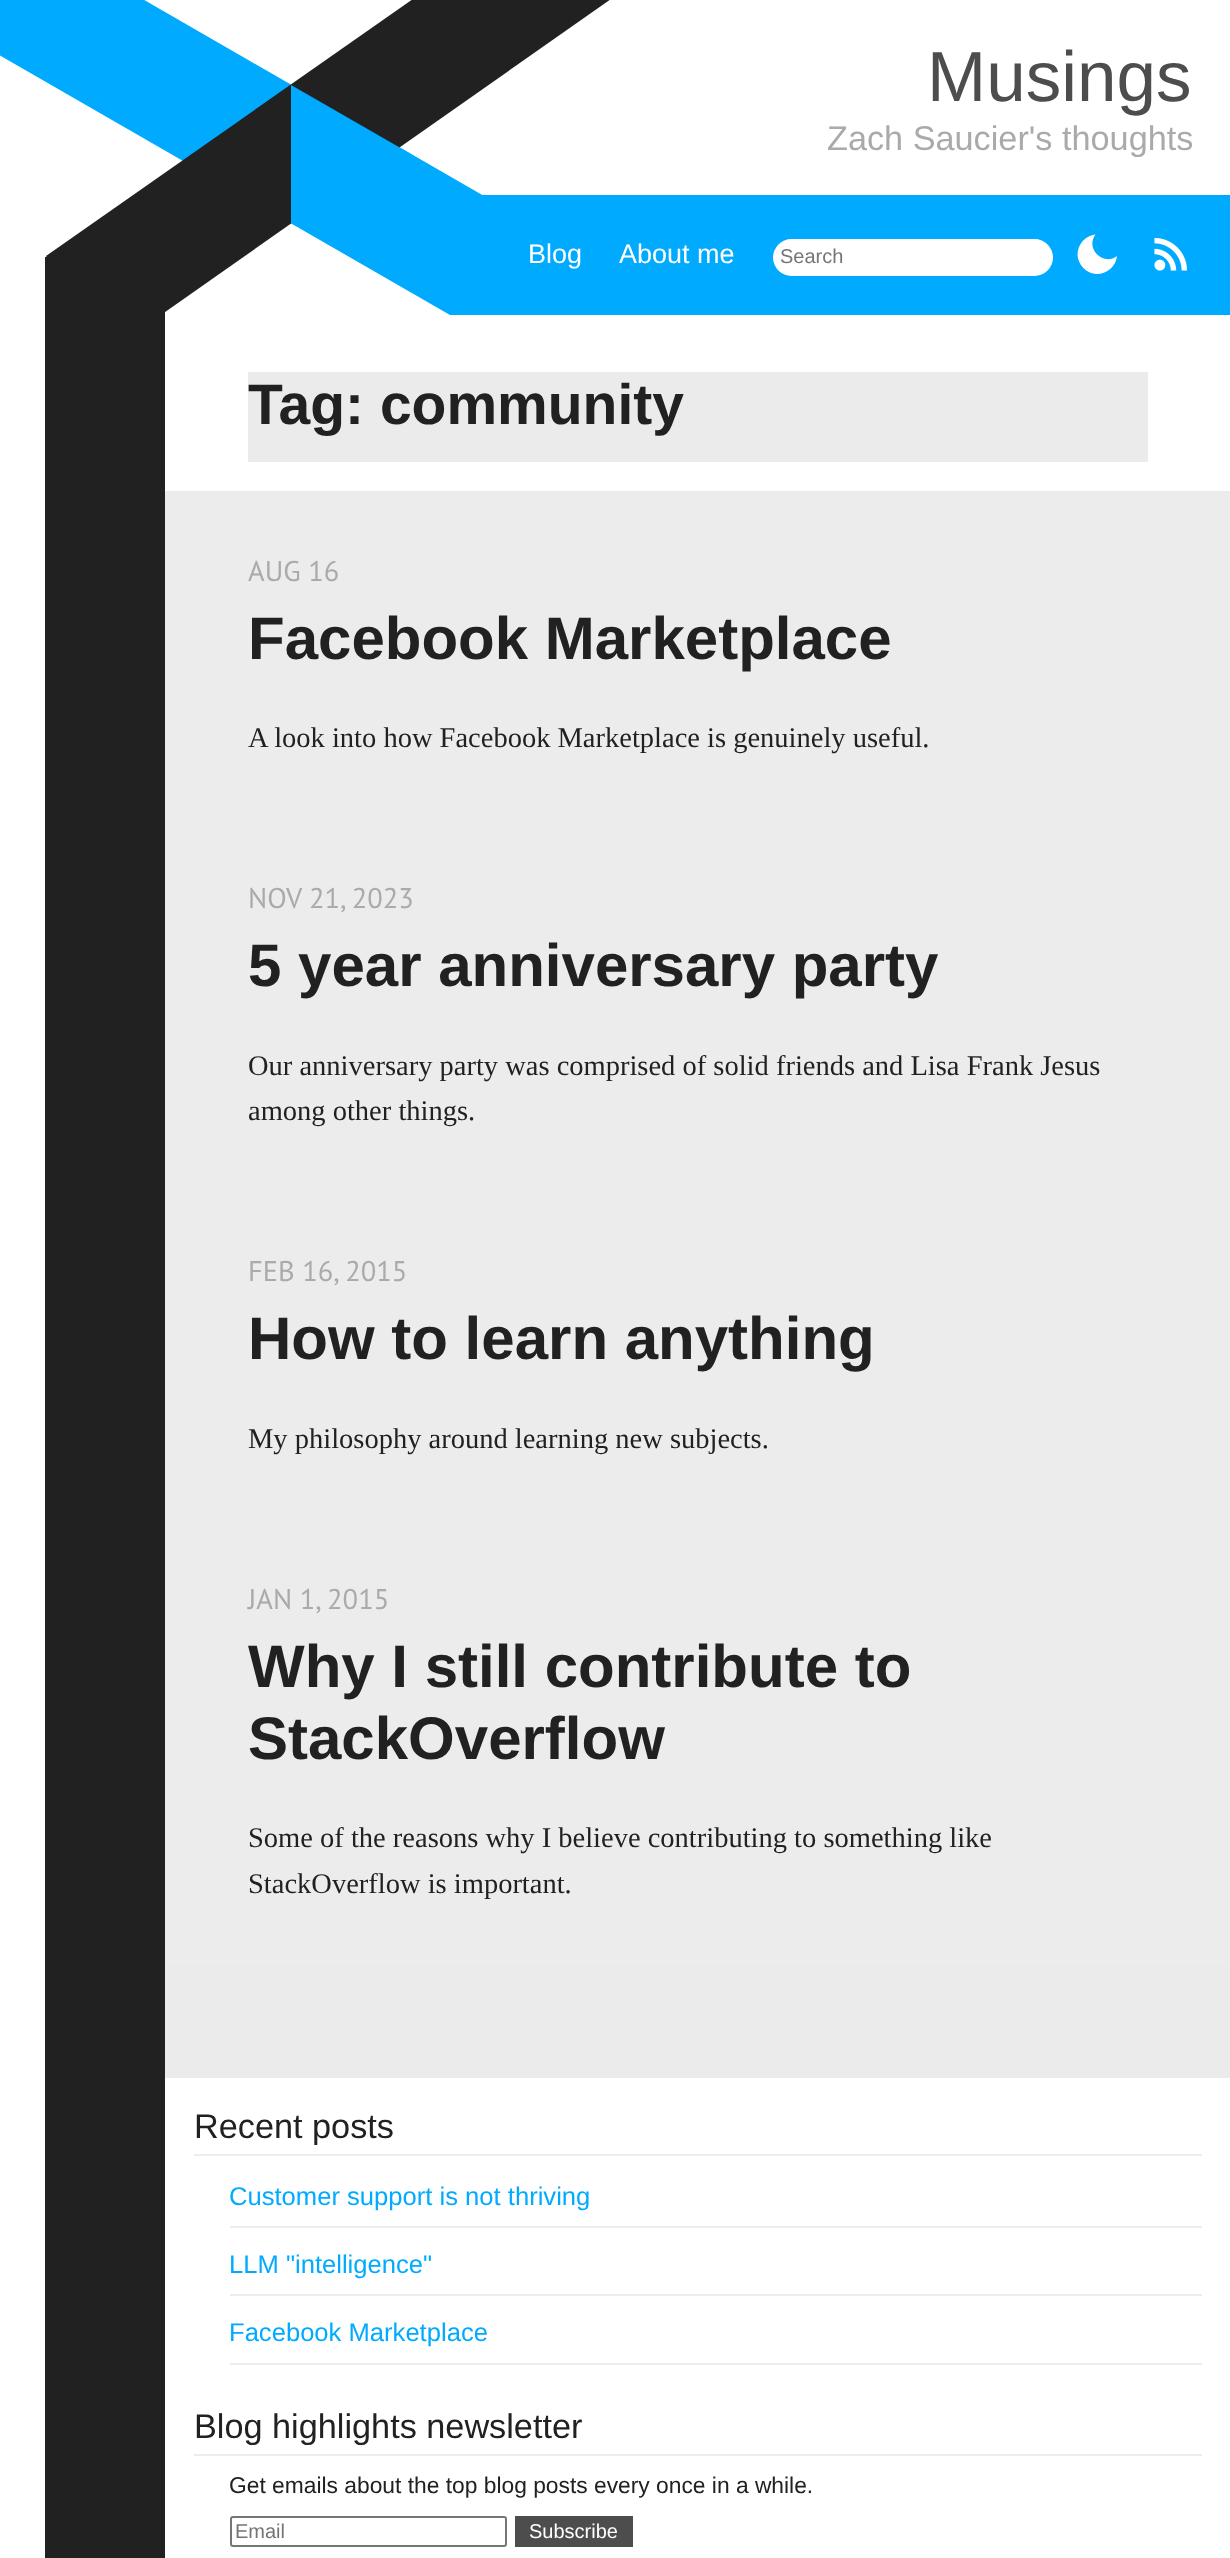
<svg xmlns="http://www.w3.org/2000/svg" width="1230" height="2558">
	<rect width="100%" height="100%" fill="#FFFFFF" />
	<rect x="450" y="195" width="780" height="120" fill="#00ABFF" />
	<path d="M-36-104L510 211L450 315L-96 0Z" fill="#00ABFF" />
	<rect x="45" y="257" width="120" height="2301" fill="#212121" />
	<path d="M660-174L725-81L111 350L46 256Z" fill="#212121" />
	<path d="M291 85L411 154V292L291 223Z" fill="#00ABFF" />
	<text x="927" y="101" font-family="Liberation Sans" font-size="71" fill="#4D4D4D">Musings</text>
	<text x="827" y="150" font-family="Liberation Sans" font-size="34.25" fill="#AAAAAA">Zach Saucier's thoughts</text>
	<g font-family="Liberation Sans" font-size="27" fill="#FFFFFF">
		<text x="528" y="263">Blog</text>
		<text x="619" y="263">About me</text>
	</g>
	<rect x="773" y="239" width="280" height="37" rx="18.5" fill="#FFFFFF" />
	<text x="780" y="263" font-family="Liberation Sans" font-size="20" fill="#757575">Search</text>
	<path d="M1117 256C1116 266.5 1107 274 1096.5 274C1086.5 273.5 1078 265 1077.5 255C1077.5 244.5 1085 235.5 1095.5 234.5C1085 248.5 1103 266.5 1117 256Z" fill="#FFFFFF" />
	<image x="1154" y="237" width="34" height="34" href="assets/img1.png" />
	<rect x="248" y="372" width="900" height="90" fill="#EBEBEB" />
	<text x="248" y="424" font-family="Liberation Sans" font-size="57" font-weight="700" fill="#212121">Tag: community</text>
	<rect x="165" y="491" width="1065" height="1473" fill="#ECECEC" />
	<text x="248" y="581" font-family="PT Sans" font-size="28.5" fill="#AAAAAA">AUG 16</text>
	<text x="248" y="659" font-family="Liberation Sans" font-size="60" font-weight="700" fill="#212121">Facebook Marketplace</text>
	<text x="248" y="747" font-family="Liberation Serif" font-size="28.5" fill="#212121">A look into how Facebook Marketplace is genuinely useful.</text>
	<text x="248" y="908" font-family="PT Sans" font-size="28.5" fill="#AAAAAA">NOV 21, 2023</text>
	<text x="248" y="986" font-family="Liberation Sans" font-size="60" font-weight="700" fill="#212121">5 year anniversary party</text>
	<g font-family="Liberation Serif" font-size="28.5" fill="#212121">
		<text x="248" y="1075">Our anniversary party was comprised of solid friends and Lisa Frank Jesus</text>
		<text x="248" y="1120">among other things.</text>
	</g>
	<text x="248" y="1281" font-family="PT Sans" font-size="28.5" fill="#AAAAAA">FEB 16, 2015</text>
	<text x="248" y="1359" font-family="Liberation Sans" font-size="60" font-weight="700" fill="#212121">How to learn anything</text>
	<text x="248" y="1448" font-family="Liberation Serif" font-size="28.5" fill="#212121">My philosophy around learning new subjects.</text>
	<text x="248" y="1609" font-family="PT Sans" font-size="28.5" fill="#AAAAAA">JAN 1, 2015</text>
	<g font-family="Liberation Sans" font-size="60" font-weight="700" fill="#212121">
		<text x="248" y="1687">Why I still contribute to</text>
		<text x="248" y="1759">StackOverflow</text>
	</g>
	<g font-family="Liberation Serif" font-size="28.5" fill="#212121">
		<text x="248" y="1847">Some of the reasons why I believe contributing to something like</text>
		<text x="248" y="1893">StackOverflow is important.</text>
	</g>
	<rect x="165" y="1964" width="1065" height="114" fill="#EBEBEB" />
	<rect x="194" y="2154" width="1008" height="2" fill="#EDEDED" />
	<text x="194" y="2138" font-family="Liberation Sans" font-size="34.25" fill="#212121">Recent posts</text>
	<rect x="230" y="2226" width="972" height="2" fill="#EDEDED" />
	<text x="229" y="2205" font-family="Liberation Sans" font-size="25.6" fill="#00ABFF">Customer support is not thriving</text>
	<rect x="230" y="2294" width="972" height="2" fill="#EDEDED" />
	<text x="229" y="2273" font-family="Liberation Sans" font-size="25.6" fill="#00ABFF">LLM "intelligence"</text>
	<rect x="230" y="2363" width="972" height="2" fill="#EDEDED" />
	<text x="229" y="2341" font-family="Liberation Sans" font-size="25.6" fill="#00ABFF">Facebook Marketplace</text>
	<rect x="194" y="2454" width="1008" height="2" fill="#EDEDED" />
	<text x="194" y="2438" font-family="Liberation Sans" font-size="34.25" fill="#212121">Blog highlights newsletter</text>
	<text x="229" y="2493" font-family="Liberation Sans" font-size="22.8" fill="#212121">Get emails about the top blog posts every once in a while.</text>
	<rect x="231" y="2517" width="275" height="29" rx="2" fill="none" stroke="#767676" stroke-width="2" />
	<text x="235" y="2538" font-family="Liberation Sans" font-size="20" fill="#757575">Email</text>
	<rect x="515" y="2516" width="118" height="31" fill="#4D4D4D" />
	<text x="529" y="2538" font-family="Liberation Sans" font-size="20" fill="#FFFFFF">Subscribe</text>
</svg>
